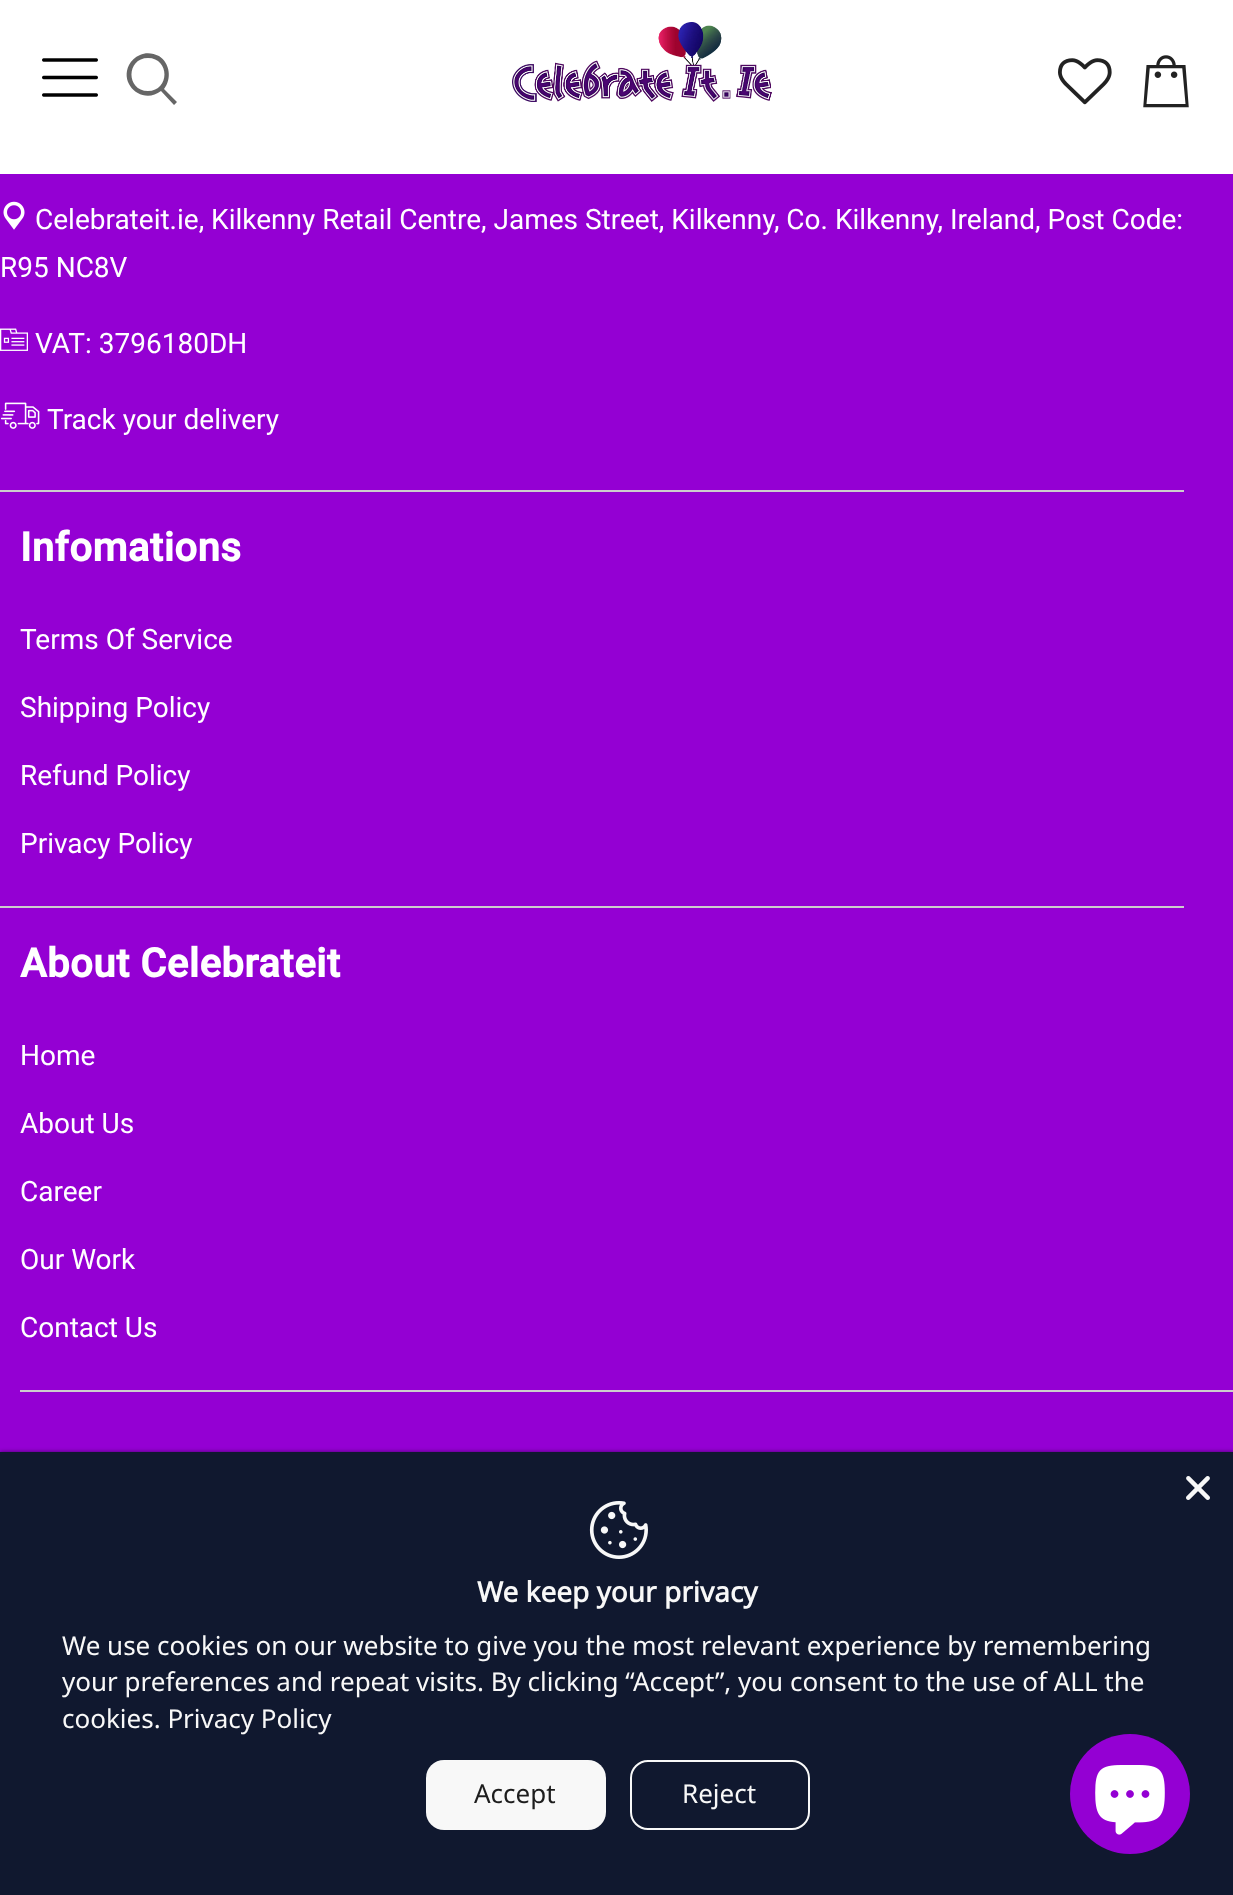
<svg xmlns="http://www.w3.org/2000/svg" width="1233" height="1895">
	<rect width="100%" height="100%" fill="#9400D3" />
	<rect x="0" y="0" width="1233" height="174" fill="#FFFFFF" />
	<image x="42" y="58" width="56" height="39" href="assets/img1.png" />
	<path d="M164 89C172 79 170 63 159 56C153 53 146 52 140 55C135 57 131 61 129 65C119 85 143 105 161 91L174 105L177 102ZM148 91C126 91 126 58 148 58C170 58 170 91 148 91Z" fill="#666666" />
	<image x="512" y="22" width="260" height="80" href="assets/img2.png" />
	<image x="1058" y="58" width="54" height="47" href="assets/img3.png" />
	<image x="1143" y="55" width="46" height="53" href="assets/img4.png" />
	<image x="3" y="201" width="22" height="29" href="assets/img5.png" />
	<g font-family="Roboto" font-size="28" fill="#FFFFFF">
		<text x="35" y="229">Celebrateit.ie, Kilkenny Retail Centre, James Street, Kilkenny, Co. Kilkenny, Ireland, Post Code:</text>
		<text x="0" y="277">R95 NC8V</text>
	</g>
	<image x="0" y="328" width="28" height="23" href="assets/img6.png" />
	<text x="35" y="353" font-family="Roboto" font-size="28" fill="#FFFFFF">VAT: 3796180DH</text>
	<image x="0" y="402" width="40" height="27" href="assets/img7.png" />
	<text x="47" y="429" font-family="Roboto" font-size="28" fill="#FFFFFF">Track your delivery</text>
	<rect x="0" y="490" width="1184" height="2" fill="#CDCDCD" />
	<text x="20" y="561" font-family="Roboto" font-size="40" font-weight="700" letter-spacing="0.5" fill="#FFFFFF">Infomations</text>
	<g font-family="Roboto" font-size="28" fill="#FFFFFF">
		<text x="20" y="649">Terms Of Service</text>
		<text x="20" y="717">Shipping Policy</text>
		<text x="20" y="785">Refund Policy</text>
		<text x="20" y="853">Privacy Policy</text>
	</g>
	<rect x="0" y="906" width="1184" height="2" fill="#CDCDCD" />
	<text x="20" y="977" font-family="Roboto" font-size="40" font-weight="700" letter-spacing="0.5" fill="#FFFFFF">About Celebrateit</text>
	<g font-family="Roboto" font-size="28" fill="#FFFFFF">
		<text x="20" y="1065">Home</text>
		<text x="20" y="1133">About Us</text>
		<text x="20" y="1201">Career</text>
		<text x="20" y="1269">Our Work</text>
		<text x="20" y="1337">Contact Us</text>
	</g>
	<rect x="20" y="1390" width="1213" height="2" fill="#CDCDCD" />
	<rect x="0" y="1452" width="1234" height="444" fill="#000000" fill-opacity="0.5" filter="blur(2px)" />
	<rect x="0" y="1452" width="1233" height="443" fill="#10182F" />
	<image x="1186" y="1476" width="24" height="24" href="assets/img8.png" />
	<image x="589" y="1501" width="59" height="58" href="assets/img9.png" />
	<text x="477" y="1602" font-family="Noto Sans" font-size="28" font-weight="700" fill="#F8F8F8">We keep your privacy</text>
	<g font-family="Noto Sans" font-size="26" fill="#F8F8F8">
		<text x="62" y="1655">We use cookies on our website to give you the most relevant experience by remembering</text>
		<text x="62" y="1691">your preferences and repeat visits. By clicking “Accept”, you consent to the use of ALL the</text>
		<text x="62" y="1728">cookies. Privacy Policy</text>
	</g>
	<rect x="426" y="1760" width="180" height="70" rx="18" fill="#F8F8F8" />
	<text x="474" y="1803" font-family="Noto Sans" font-size="26" fill="#1D1D1D">Accept</text>
	<rect x="631" y="1761" width="178" height="68" rx="17" fill="none" stroke="#F8F8F8" stroke-width="2" />
	<text x="682" y="1803" font-family="Noto Sans" font-size="26" fill="#F8F8F8">Reject</text>
	<circle cx="1130" cy="1794" r="60" fill="#9400D3" />
	<image x="1095" y="1765" width="70" height="70" href="assets/img10.png" />
</svg>
